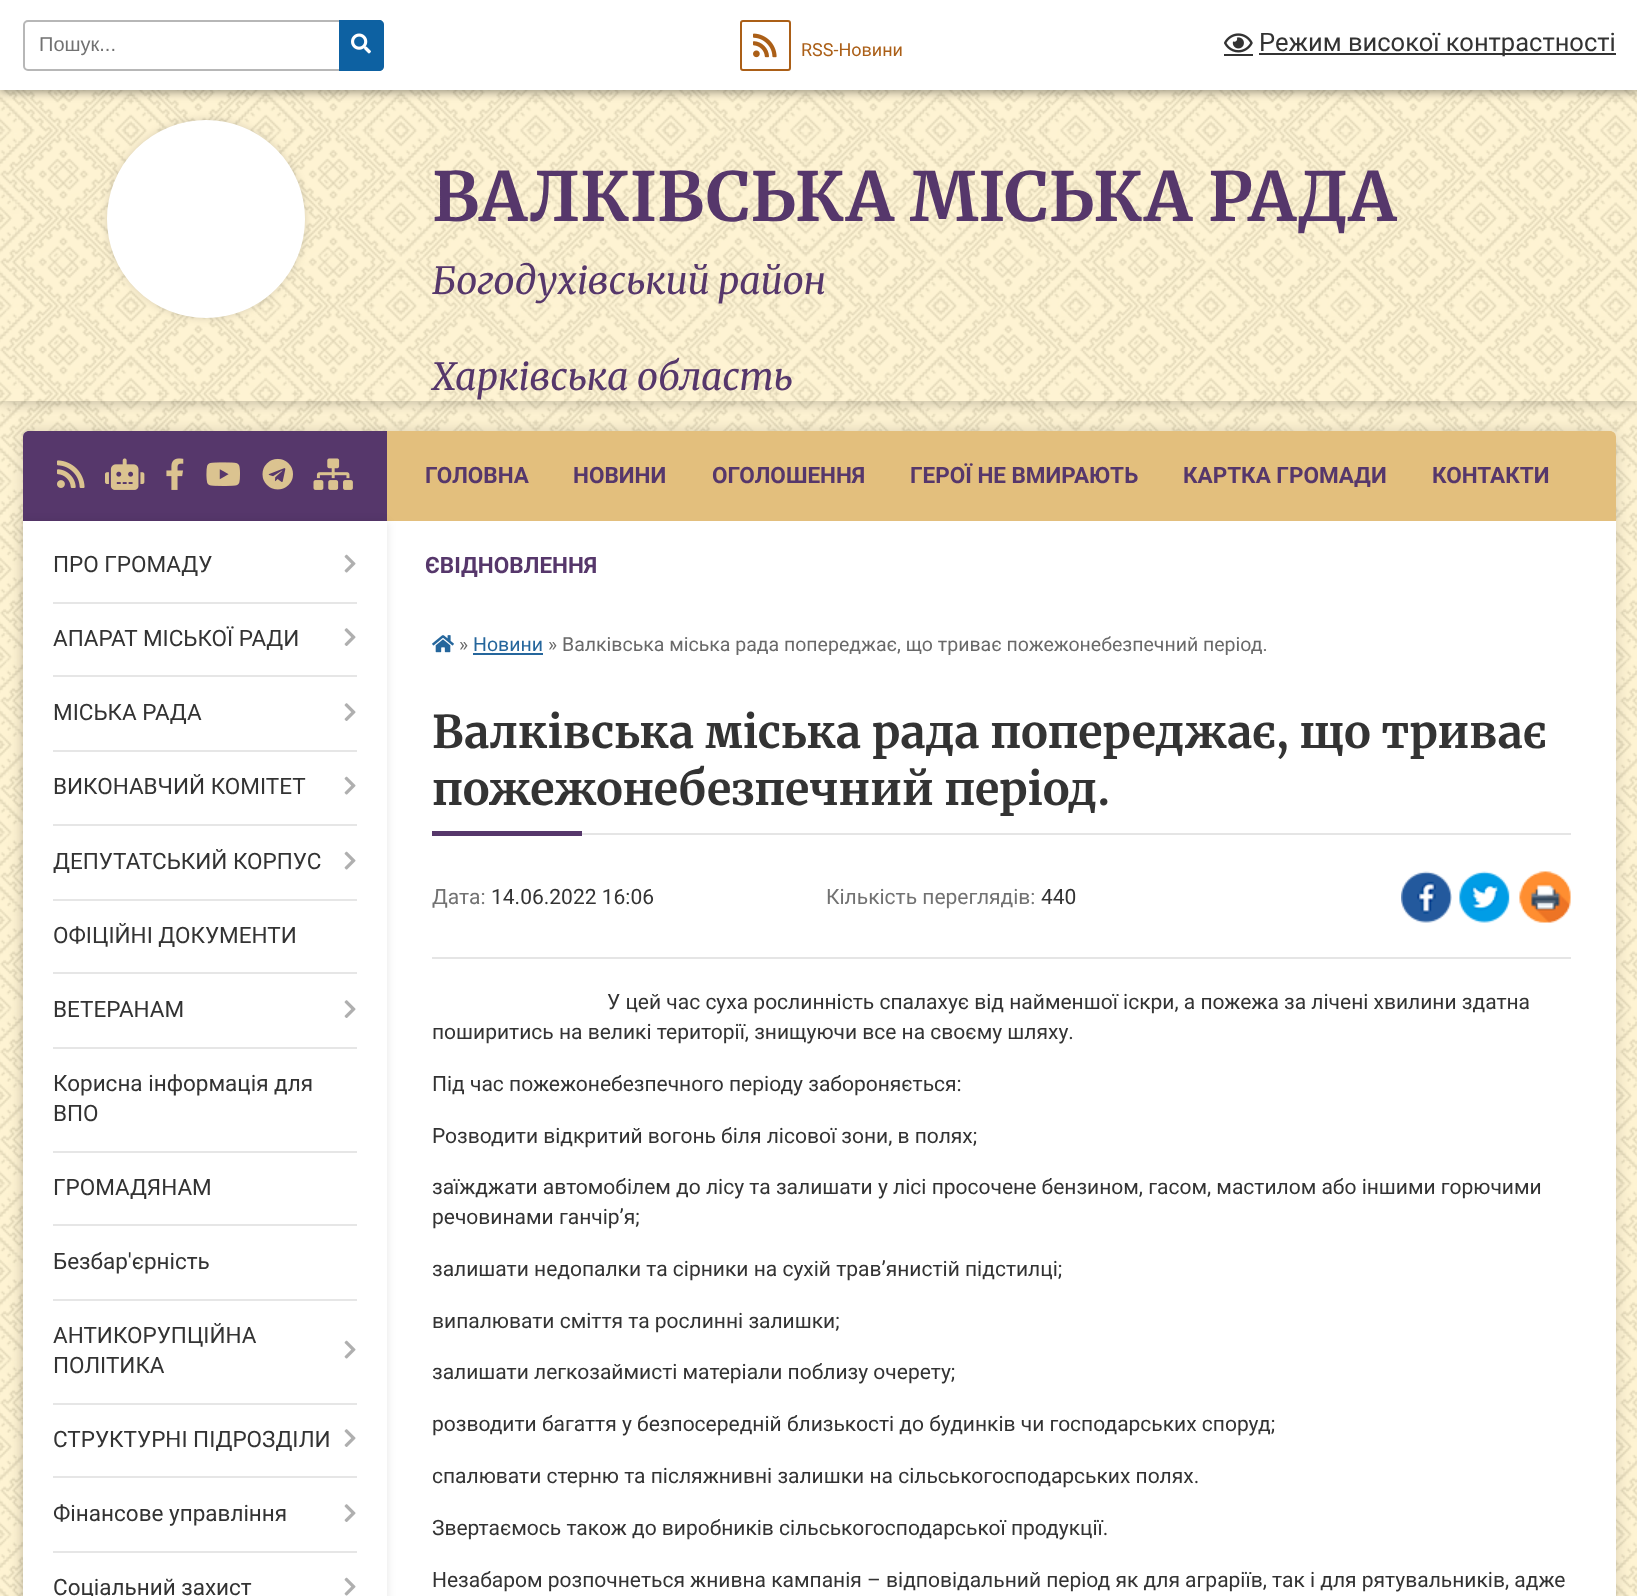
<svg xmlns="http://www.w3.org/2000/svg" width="1637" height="1596">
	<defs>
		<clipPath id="clip1"><path d="M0 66H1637V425H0ZM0 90H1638V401H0Z" clip-rule="evenodd" /></clipPath>
		<clipPath id="clip2"><path d="M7 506H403V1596H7ZM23 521H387V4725H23Z" clip-rule="evenodd" /></clipPath>
	</defs>
	<rect width="100%" height="100%" fill="#FFF4CF" />
	<image x="0" y="90" width="1637" height="1506" href="assets/img1.png" />
	<rect x="0" y="2" width="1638" height="90" fill="#000000" fill-opacity="0.4" filter="blur(5px)" />
	<g clip-path="url(#clip1)">
		<rect x="0" y="90" width="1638" height="311" fill="#000000" fill-opacity="0.3" filter="blur(7.5px)" />
	</g>
	<rect x="0" y="0" width="1637" height="90" fill="#FFFFFF" />
	<rect x="24" y="21" width="359" height="49" rx="4" fill="none" stroke="#B7B7B7" stroke-width="2" />
	<text x="39" y="51" font-family="Liberation Sans" font-size="20" fill="#727272">Пошук...</text>
	<path d="M339 20H379C382 20 384 22 384 25V66C384 69 382 71 379 71H339Z" fill="#0D61A2" />
	<image x="351" y="33" width="20" height="21" href="assets/img2.png" />
	<rect x="741" y="21" width="49" height="49" rx="2" fill="none" stroke="#AB5F17" stroke-width="2" />
	<image x="753" y="33" width="24" height="25" href="assets/img3.png" />
	<text x="801" y="56" font-family="Roboto" font-size="18" fill="#AB5F17">RSS-Новини</text>
	<image x="1224" y="33" width="29" height="20" href="assets/img4.png" />
	<rect x="1224" y="54" width="29" height="2" fill="#333333" />
	<rect x="1259" y="53" width="357" height="2" fill="#333333" />
	<text x="1259" y="51" font-family="Roboto" font-size="25.5" fill="#333333">Режим високої контрастності</text>
	<rect x="107" y="120" width="198" height="198" rx="99" fill="#000000" fill-opacity="0.15" filter="blur(4.5px)" />
	<circle cx="206" cy="219" r="97.5" fill="#FFFFFF" stroke="#FFFFFF" stroke-width="3" />
	<text x="432" y="221" font-family="Merriweather" font-size="67.5" font-weight="300" fill="#56376B">ВАЛКІВСЬКА МІСЬКА РАДА</text>
	<g font-family="Merriweather" font-size="37.5" font-weight="300" font-style="italic" fill="#56376B">
		<text x="432" y="294">Богодухівський район</text>
		<text x="432" y="390">Харківська область</text>
	</g>
	<rect x="23" y="431" width="1593" height="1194" rx="6" fill="#000000" fill-opacity="0.15" filter="blur(7.5px)" />
	<rect x="23" y="431" width="1593" height="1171" rx="6" fill="#FFFFFF" />
	<path d="M29 431H387V521H23V437C23 433.5 25.5 431 29 431Z" fill="#56376B" />
	<image x="57" y="460" width="28" height="28" href="assets/img5.png" />
	<image x="105" y="458" width="40" height="32" href="assets/img6.png" />
	<image x="166" y="458" width="18" height="32" href="assets/img7.png" />
	<image x="206" y="462" width="34" height="24" href="assets/img8.png" />
	<image x="262" y="458" width="31" height="32" href="assets/img9.png" />
	<image x="313" y="458" width="40" height="32" href="assets/img10.png" />
	<path d="M387 431H1610C1613.5 431 1616 433.5 1616 437V521H387Z" fill="#E3BF7D" />
	<g clip-path="url(#clip2)">
		<rect x="23" y="522" width="364" height="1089" fill="#000000" fill-opacity="0.1" filter="blur(5px)" />
	</g>
	<text x="53" y="572" font-family="Roboto" font-size="22.5" fill="#333333">ПРО ГРОМАДУ</text>
	<rect x="53" y="602" width="304" height="2" fill="#E6E6E6" />
	<image x="344" y="554" width="12" height="19" href="assets/img11.png" />
	<text x="53" y="646" font-family="Roboto" font-size="22.5" fill="#333333">АПАРАТ МІСЬКОЇ РАДИ</text>
	<rect x="53" y="675" width="304" height="2" fill="#E6E6E6" />
	<image x="344" y="628" width="12" height="18" href="assets/img12.png" />
	<text x="53" y="720" font-family="Roboto" font-size="22.5" fill="#333333">МІСЬКА РАДА</text>
	<rect x="53" y="750" width="304" height="2" fill="#E6E6E6" />
	<image x="344" y="703" width="12" height="18" href="assets/img12.png" />
	<text x="53" y="794" font-family="Roboto" font-size="22.5" fill="#333333">ВИКОНАВЧИЙ КОМІТЕТ</text>
	<rect x="53" y="824" width="304" height="2" fill="#E6E6E6" />
	<image x="344" y="776" width="12" height="19" href="assets/img11.png" />
	<text x="53" y="869" font-family="Roboto" font-size="22.5" fill="#333333">ДЕПУТАТСЬКИЙ КОРПУС</text>
	<rect x="53" y="899" width="304" height="2" fill="#E6E6E6" />
	<image x="344" y="851" width="12" height="19" href="assets/img11.png" />
	<text x="53" y="943" font-family="Roboto" font-size="22.5" fill="#333333">ОФІЦІЙНІ ДОКУМЕНТИ</text>
	<rect x="53" y="972" width="304" height="2" fill="#E6E6E6" />
	<text x="53" y="1017" font-family="Roboto" font-size="22.5" fill="#333333">ВЕТЕРАНАМ</text>
	<rect x="53" y="1047" width="304" height="2" fill="#E6E6E6" />
	<image x="344" y="1000" width="12" height="18" href="assets/img12.png" />
	<g font-family="Roboto" font-size="22.5" fill="#333333">
		<text x="53" y="1091">Корисна інформація для</text>
		<text x="53" y="1121">ВПО</text>
	</g>
	<rect x="53" y="1151" width="304" height="2" fill="#E6E6E6" />
	<text x="53" y="1195" font-family="Roboto" font-size="22.5" fill="#333333">ГРОМАДЯНАМ</text>
	<rect x="53" y="1224" width="304" height="2" fill="#E6E6E6" />
	<text x="53" y="1269" font-family="Roboto" font-size="22.5" fill="#333333">Безбар'єрність</text>
	<rect x="53" y="1299" width="304" height="2" fill="#E6E6E6" />
	<g font-family="Roboto" font-size="22.5" fill="#333333">
		<text x="53" y="1343">АНТИКОРУПЦІЙНА</text>
		<text x="53" y="1373">ПОЛІТИКА</text>
	</g>
	<rect x="53" y="1403" width="304" height="2" fill="#E6E6E6" />
	<image x="344" y="1340" width="12" height="19" href="assets/img11.png" />
	<text x="53" y="1447" font-family="Roboto" font-size="22.5" fill="#333333">СТРУКТУРНІ ПІДРОЗДІЛИ</text>
	<rect x="53" y="1476" width="304" height="2" fill="#E6E6E6" />
	<image x="344" y="1429" width="12" height="18" href="assets/img12.png" />
	<text x="53" y="1521" font-family="Roboto" font-size="22.5" fill="#333333">Фінансове управління</text>
	<rect x="53" y="1551" width="304" height="2" fill="#E6E6E6" />
	<image x="344" y="1504" width="12" height="18" href="assets/img12.png" />
	<text x="53" y="1595" font-family="Roboto" font-size="22.5" fill="#333333">Соціальний захист</text>
	<image x="344" y="1577" width="12" height="19" href="assets/img11.png" />
	<g font-family="Roboto" font-size="22.5" font-weight="700" fill="#56376B">
		<text x="425" y="483">ГОЛОВНА</text>
		<text x="573" y="483">НОВИНИ</text>
		<text x="712" y="483">ОГОЛОШЕННЯ</text>
		<text x="910" y="483">ГЕРОЇ НЕ ВМИРАЮТЬ</text>
		<text x="1183" y="483">КАРТКА ГРОМАДИ</text>
		<text x="1432" y="483">КОНТАКТИ</text>
		<text x="425" y="573">ЄВІДНОВЛЕННЯ</text>
	</g>
	<image x="432" y="635" width="22" height="18" href="assets/img13.png" />
	<text x="459" y="651" font-family="Roboto" font-size="19.5" fill="#696969">»</text>
	<text x="473" y="651" font-family="Roboto" font-size="19.5" fill="#25669C">Новини</text>
	<rect x="473" y="653" width="70" height="2" fill="#25669C" />
	<text x="548" y="651" font-family="Roboto" font-size="19.5" fill="#696969">» Валківська міська рада попереджає, що триває пожежонебезпечний період.</text>
	<rect x="582" y="833" width="989" height="2" fill="#E5E5E5" />
	<g font-family="Merriweather" font-size="45" font-weight="300" fill="#333333">
		<text x="432" y="748">Валківська міська рада попереджає, що триває</text>
		<text x="432" y="805">пожежонебезпечний період.</text>
	</g>
	<rect x="432" y="831" width="150" height="5" fill="#56376B" />
	<text x="432" y="904" font-family="Roboto" font-size="21" fill="#727272">Дата:</text>
	<text x="491" y="904" font-family="Roboto" font-size="21" fill="#333333">14.06.2022 16:06</text>
	<text x="826" y="904" font-family="Roboto" font-size="21" fill="#727272">Кількість переглядів:</text>
	<text x="1041" y="904" font-family="Roboto" font-size="21" fill="#333333">440</text>
	<image x="1401" y="871" width="51" height="52" href="assets/img14.png" />
	<image x="1459" y="871" width="51" height="52" href="assets/img15.png" />
	<image x="1519" y="871" width="52" height="52" href="assets/img16.png" />
	<rect x="432" y="957" width="1139" height="2" fill="#E5E5E5" />
	<g font-family="Roboto" font-size="21" fill="#333333">
		<text x="607" y="1009">У цей час суха рослинність спалахує від найменшої іскри, а пожежа за лічені хвилини здатна</text>
		<text x="432" y="1039">поширитись на великі території, знищуючи все на своєму шляху.</text>
		<text x="432" y="1091">Під час пожежонебезпечного періоду забороняється:</text>
		<text x="432" y="1143">Розводити відкритий вогонь біля лісової зони, в полях;</text>
		<text x="432" y="1194">заїжджати автомобілем до лісу та залишати у лісі просочене бензином, гасом, мастилом або іншими горючими</text>
		<text x="432" y="1224">речовинами ганчір’я;</text>
		<text x="432" y="1276">залишати недопалки та сірники на сухій трав’янистій підстилці;</text>
		<text x="432" y="1328">випалювати сміття та рослинні залишки;</text>
		<text x="432" y="1379">залишати легкозаймисті матеріали поблизу очерету;</text>
		<text x="432" y="1431">розводити багаття у безпосередній близькості до будинків чи господарських споруд;</text>
		<text x="432" y="1483">спалювати стерню та післяжнивні залишки на сільськогосподарських полях.</text>
		<text x="432" y="1535">Звертаємось також до виробників сільськогосподарської продукції.</text>
		<text x="432" y="1587">Незабаром розпочнеться жнивна кампанія – відповідальний період як для аграріїв, так і для рятувальників, адже</text>
	</g>
</svg>
